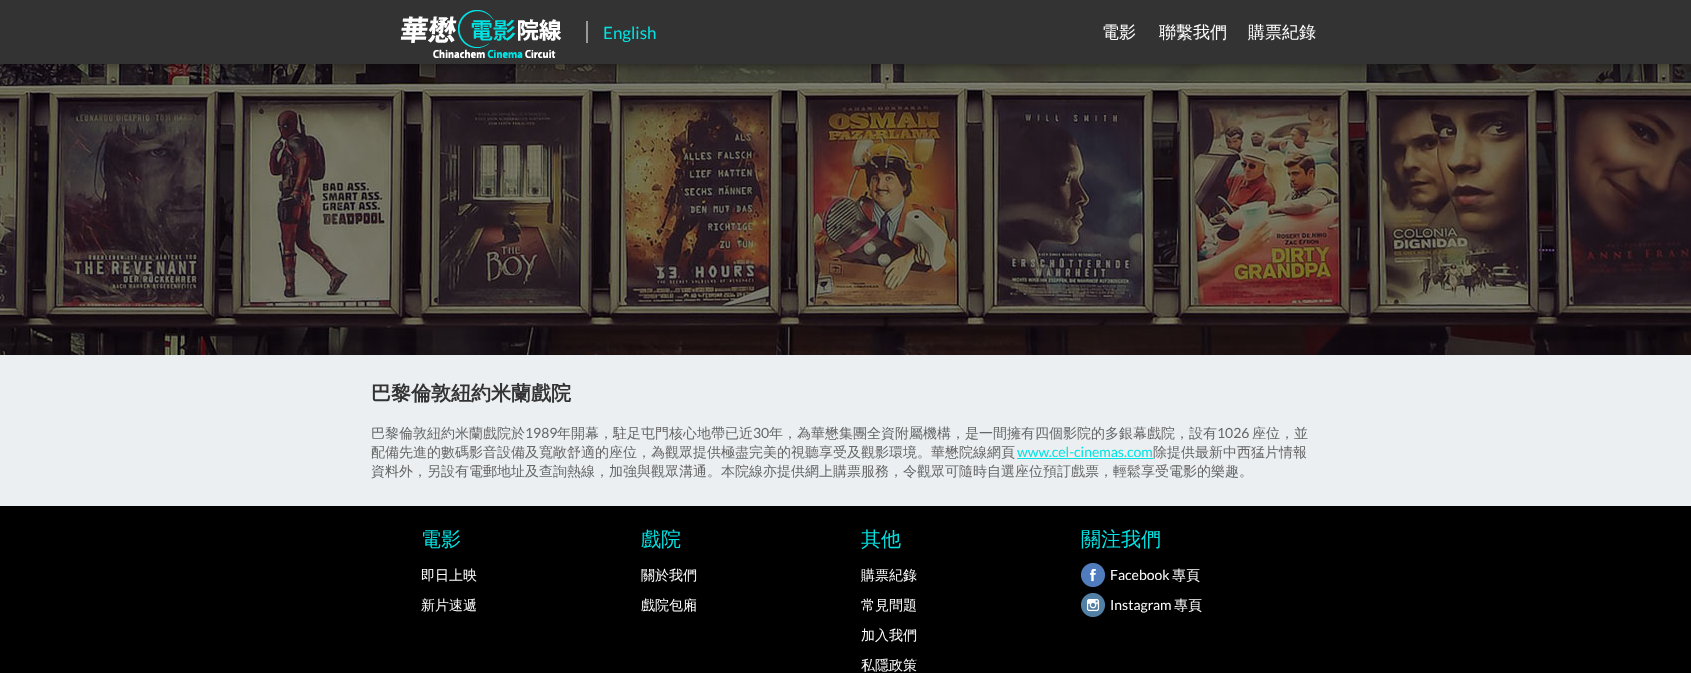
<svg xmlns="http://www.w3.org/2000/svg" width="1691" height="673">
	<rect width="100%" height="100%" fill="#EBEFF2" />
	<image x="0" y="64" width="1691" height="291" href="assets/img2.png" />
	<rect x="0" y="3" width="1691" height="64" fill="#000000" fill-opacity="0.3" filter="blur(3px)" />
	<rect x="0" y="0" width="1691" height="64" fill="#333333" />
	<image x="400" y="10" width="161" height="48" href="assets/img1.png" />
	<rect x="586" y="21" width="2" height="22" fill="#999999" />
	<text x="603" y="39" font-family="Lato" font-size="17" fill="#03E3E3">English</text>
	<g font-family="WenQuanYi Zen Hei" font-size="17" font-weight="500" fill="#FFFFFF">
		<text x="1102" y="38">電影</text>
		<text x="1159" y="38">聯繫我們</text>
		<text x="1248" y="38">購票紀錄</text>
	</g>
	<text x="371" y="400" font-family="WenQuanYi Zen Hei" font-size="20" font-weight="700" fill="#333333">巴黎倫敦紐約米蘭戲院</text>
	<text x="371" y="438" font-family="WenQuanYi Zen Hei" font-size="14" font-weight="500" fill="#666666">巴黎倫敦紐約米蘭戲院於</text>
	<text x="525" y="438" font-family="Lato" font-size="14" fill="#666666">1989</text>
	<text x="557" y="438" font-family="WenQuanYi Zen Hei" font-size="14" font-weight="500" fill="#666666">年開幕，駐足屯門核心地帶已近</text>
	<text x="753" y="438" font-family="Lato" font-size="14" fill="#666666">30</text>
	<text x="769" y="438" font-family="WenQuanYi Zen Hei" font-size="14" font-weight="500" fill="#666666">年，為華懋集團全資附屬機構，是一間擁有四個影院的多銀幕戲院，設有</text>
	<text x="1217" y="438" font-family="Lato" font-size="14" fill="#666666">1026</text>
	<g font-family="WenQuanYi Zen Hei" font-size="14" font-weight="500" fill="#666666">
		<text x="1252" y="438">座位，並</text>
		<text x="371" y="457">配備先進的數碼影音設備及寬敞舒適的座位，為觀眾提供極盡完美的視聽享受及觀影環境。華懋院線網頁</text>
	</g>
	<text x="1017" y="457" font-family="Lato" font-size="14" fill="#03E3E3">www.cel-cinemas.com</text>
	<rect x="1017" y="458" width="136" height="1" fill="#03E3E3" />
	<g font-family="WenQuanYi Zen Hei" font-size="14" font-weight="500" fill="#666666">
		<text x="1153" y="457">除提供最新中西猛片情報</text>
		<text x="371" y="476">資料外，另設有電郵地址及查詢熱線，加強與觀眾溝通。本院線亦提供網上購票服務，令觀眾可隨時自選座位預訂戲票，輕鬆享受電影的樂趣。</text>
	</g>
	<rect x="0" y="506" width="1691" height="167" fill="#000000" />
	<text x="421" y="546" font-family="WenQuanYi Zen Hei" font-size="20" font-weight="500" fill="#03E3E3">電影</text>
	<g font-family="WenQuanYi Zen Hei" font-size="14" font-weight="500" fill="#FFFFFF">
		<text x="421" y="580">即日上映</text>
		<text x="421" y="610">新片速遞</text>
	</g>
	<text x="641" y="546" font-family="WenQuanYi Zen Hei" font-size="20" font-weight="500" fill="#03E3E3">戲院</text>
	<g font-family="WenQuanYi Zen Hei" font-size="14" font-weight="500" fill="#FFFFFF">
		<text x="641" y="580">關於我們</text>
		<text x="641" y="610">戲院包廂</text>
	</g>
	<text x="861" y="546" font-family="WenQuanYi Zen Hei" font-size="20" font-weight="500" fill="#03E3E3">其他</text>
	<g font-family="WenQuanYi Zen Hei" font-size="14" font-weight="500" fill="#FFFFFF">
		<text x="861" y="580">購票紀錄</text>
		<text x="861" y="610">常見問題</text>
		<text x="861" y="640">加入我們</text>
		<text x="861" y="670">私隱政策</text>
	</g>
	<text x="1081" y="546" font-family="WenQuanYi Zen Hei" font-size="20" font-weight="500" fill="#03E3E3">關注我們</text>
	<image x="1081" y="563" width="24" height="24" href="assets/img3.png" />
	<text x="1110" y="580" font-family="Lato" font-size="14" fill="#FFFFFF">Facebook</text>
	<text x="1172" y="580" font-family="WenQuanYi Zen Hei" font-size="14" font-weight="500" fill="#FFFFFF">專頁</text>
	<image x="1081" y="593" width="24" height="24" href="assets/img4.png" />
	<text x="1110" y="610" font-family="Lato" font-size="14" fill="#FFFFFF">Instagram</text>
	<text x="1174" y="610" font-family="WenQuanYi Zen Hei" font-size="14" font-weight="500" fill="#FFFFFF">專頁</text>
</svg>
